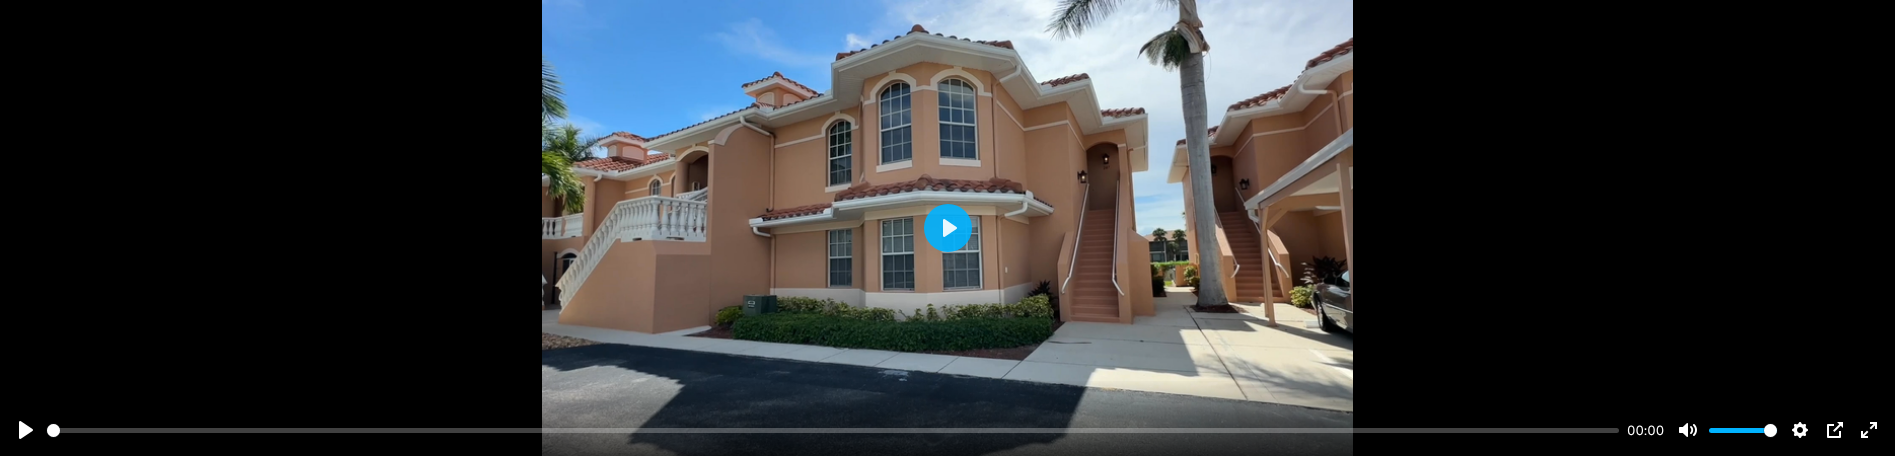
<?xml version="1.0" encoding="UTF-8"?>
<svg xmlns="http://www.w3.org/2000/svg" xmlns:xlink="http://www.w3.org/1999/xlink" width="1895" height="456">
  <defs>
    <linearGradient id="g1" gradientUnits="userSpaceOnUse" x1="948" y1="379" x2="948" y2="456"><stop offset="0" stop-color="#000000" stop-opacity="0" /><stop offset="1" stop-color="#000000" stop-opacity="0.75" /></linearGradient>
  </defs>
  <rect width="100%" height="100%" fill="#000000" />
  <image x="46" y="0" width="1732" height="456" xlink:href="image1.png" />
  <circle cx="948" cy="228" r="24" fill="#00b3ff" fill-opacity="0.9" />
  <image x="943" y="219" width="14" height="18" xlink:href="image2.png" />
  <rect x="46" y="381" width="1732" height="75" fill="url(#g1)" />
  <image x="19" y="421" width="14" height="18" xlink:href="image3.png" />
  <rect x="47" y="428" width="1572" height="5" rx="2.5" fill="#ffffff" fill-opacity="0.25" />
  <circle cx="53.5" cy="430.5" r="7" fill="none" stroke="#23282f" stroke-opacity="0.2" />
  <rect x="47" y="425" width="13" height="13" rx="6.5" fill="#23282f" fill-opacity="0.15" filter="blur(0.5px)" />
  <path d="M 50.5 420.5 h 6 l -3 3 z" fill="#000000" />
  <circle cx="53.5" cy="430.5" r="6.5" fill="#ffffff" />
  <image x="1679" y="423" width="18" height="14" xlink:href="image4.png" />
  <rect x="1709" y="428" width="68" height="5" rx="2.5" fill="#00b3ff" />
  <circle cx="1770.5" cy="430.5" r="7" fill="none" stroke="#23282f" stroke-opacity="0.2" />
  <rect x="1764" y="425" width="13" height="13" rx="6.5" fill="#23282f" fill-opacity="0.15" filter="blur(0.5px)" />
  <circle cx="1770.5" cy="430.5" r="6.5" fill="#ffffff" />
  <image x="1792" y="422" width="16" height="16" xlink:href="image5.png" />
  <image x="1827" y="422" width="16" height="16" xlink:href="image6.png" />
  <image x="1861" y="422" width="16" height="16" xlink:href="image7.png" />
  <text x="1627" y="435" style="font-family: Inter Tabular; font-size: 13px; fill: #ffffff">00:00</text>
</svg>
